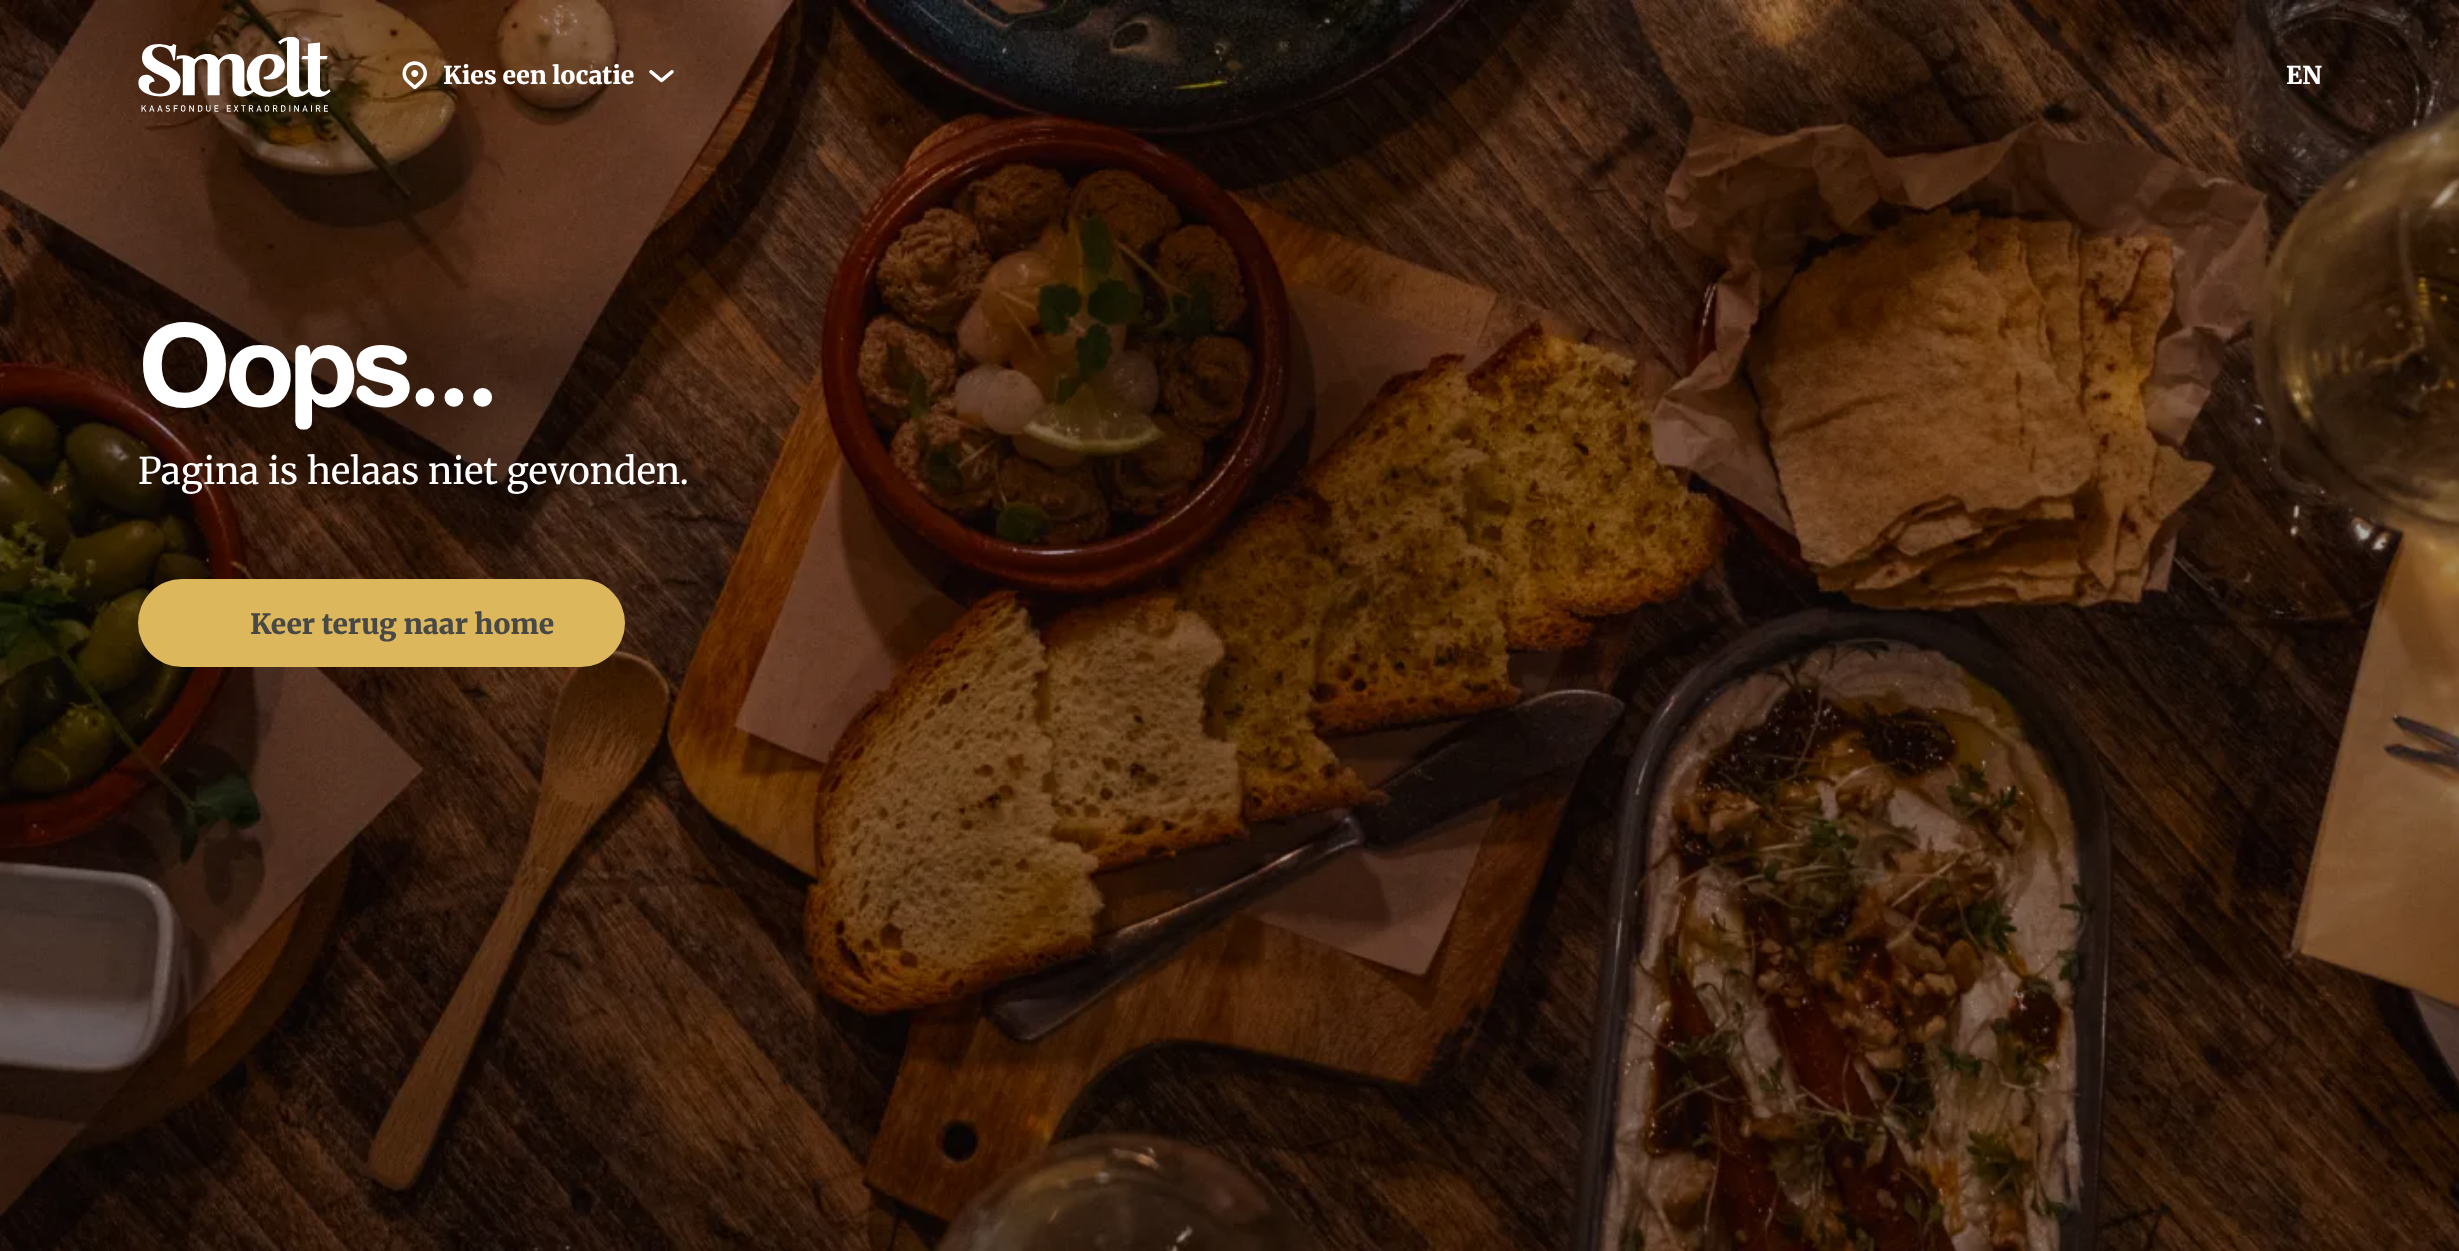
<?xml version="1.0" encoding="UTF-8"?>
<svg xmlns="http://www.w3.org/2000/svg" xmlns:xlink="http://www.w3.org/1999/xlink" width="2459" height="1251">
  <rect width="100%" height="100%" fill="#ffffff" />
  <image x="0" y="0" width="2459" height="1251" xlink:href="image1.png" />
  <image x="138" y="37" width="193" height="75" xlink:href="image2.png" />
  <image x="402" y="61" width="25" height="28" xlink:href="image3.png" />
  <image x="649" y="70" width="25" height="13" xlink:href="image4.png" />
  <rect x="138" y="579" width="487" height="88" rx="44" fill="#dcb75b" />
  <text x="443" y="84" style="font-family: Merriweather; font-size: 24.5px; font-weight: 900; fill: #ffffff">Kies een locatie</text>
  <text x="2286" y="84" style="font-family: Merriweather; font-size: 24.5px; font-weight: 900; fill: #ffffff">EN</text>
  <text x="138" y="406" style="font-family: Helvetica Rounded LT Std; font-size: 114px; font-weight: bold; letter-spacing: -6px; fill: #ffffff">Oops...</text>
  <text x="138" y="484" style="font-family: Merriweather; font-size: 36.75px; fill: #ffffff">Pagina is helaas niet gevonden.</text>
  <text x="250" y="634" style="font-family: Merriweather; font-size: 28px; font-weight: 900; fill: #484846">Keer terug naar home</text>
</svg>
